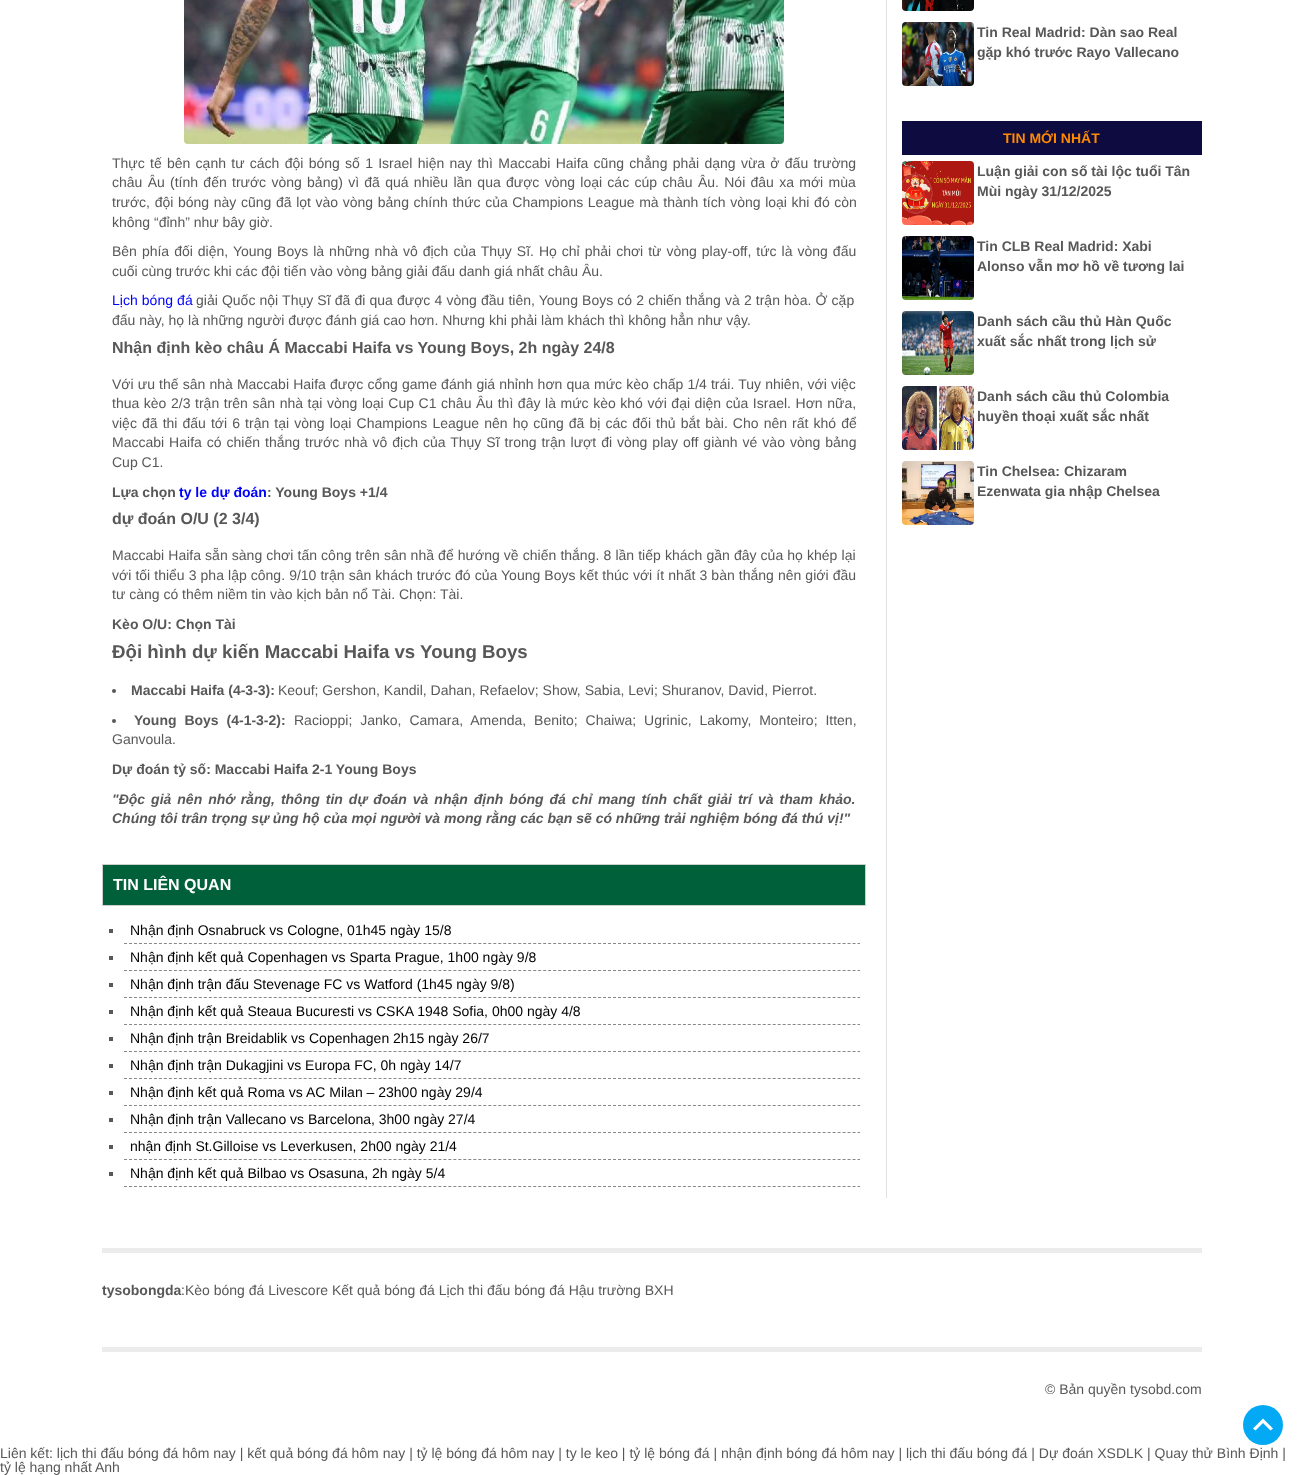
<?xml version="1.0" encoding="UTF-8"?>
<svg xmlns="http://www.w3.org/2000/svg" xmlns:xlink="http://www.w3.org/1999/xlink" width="1303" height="1475">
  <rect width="100%" height="100%" fill="#ffffff" />
  <rect x="886" width="1" height="1198" fill="#e1e1e1" />
  <image x="184" y="0" width="600" height="144" xlink:href="image1.png" />
  <circle cx="114" cy="691" r="2" fill="#585858" />
  <circle cx="114" cy="721" r="2" fill="#585858" />
  <rect x="102.5" y="864.5" width="763" height="41" fill="#00603a" stroke="#cecece" />
  <path d="M 124 943.5 h 736" fill="none" stroke="#888888" stroke-dasharray="3 1.99" />
  <rect x="109" y="929" width="4" height="4" fill="#585858" />
  <path d="M 124 970.5 h 736" fill="none" stroke="#888888" stroke-dasharray="3 1.99" />
  <rect x="109" y="956" width="4" height="4" fill="#585858" />
  <path d="M 124 997.5 h 736" fill="none" stroke="#888888" stroke-dasharray="3 1.99" />
  <rect x="109" y="983" width="4" height="4" fill="#585858" />
  <path d="M 124 1024.5 h 736" fill="none" stroke="#888888" stroke-dasharray="3 1.99" />
  <rect x="109" y="1010" width="4" height="4" fill="#585858" />
  <path d="M 124 1051.5 h 736" fill="none" stroke="#888888" stroke-dasharray="3 1.99" />
  <rect x="109" y="1037" width="4" height="4" fill="#585858" />
  <path d="M 124 1078.5 h 736" fill="none" stroke="#888888" stroke-dasharray="3 1.99" />
  <rect x="109" y="1064" width="4" height="4" fill="#585858" />
  <path d="M 124 1105.5 h 736" fill="none" stroke="#888888" stroke-dasharray="3 1.99" />
  <rect x="109" y="1091" width="4" height="4" fill="#585858" />
  <path d="M 124 1132.5 h 736" fill="none" stroke="#888888" stroke-dasharray="3 1.99" />
  <rect x="109" y="1118" width="4" height="4" fill="#585858" />
  <path d="M 124 1159.5 h 736" fill="none" stroke="#888888" stroke-dasharray="3 1.99" />
  <rect x="109" y="1145" width="4" height="4" fill="#585858" />
  <path d="M 124 1186.5 h 736" fill="none" stroke="#888888" stroke-dasharray="3 1.99" />
  <rect x="109" y="1172" width="4" height="4" fill="#585858" />
  <image x="902" y="0" width="72" height="11" xlink:href="image2.png" />
  <image x="902" y="22" width="72" height="64" xlink:href="image3.png" />
  <rect x="902" y="121" width="300" height="34" fill="#0e0b41" />
  <image x="902" y="161" width="72" height="64" xlink:href="image4.png" />
  <image x="902" y="236" width="72" height="64" xlink:href="image5.png" />
  <image x="902" y="311" width="72" height="64" xlink:href="image6.png" />
  <image x="902" y="386" width="72" height="64" xlink:href="image7.png" />
  <image x="902" y="461" width="72" height="64" xlink:href="image8.png" />
  <rect x="102" y="1248" width="1100" height="5" fill="#ececec" />
  <rect x="102" y="1347" width="1100" height="5" fill="#ececec" />
  <circle cx="1263" cy="1425" r="20" fill="#03a9f4" />
  <path d="M 1255.5 1430.5 l 7.5 -7.5 l 7.5 7.5 l 2.5 -2 l -10 -10 l -10 10 z" fill="#ffffff" />
  <text x="112" y="168" word-spacing="1.4" style="font-family: Liberation Sans; font-size: 14px; fill: #585858">Thực tế bên cạnh tư cách đội bóng số 1 Israel hiện nay thì Maccabi Haifa cũng chẳng phải dạng vừa ở đấu trường</text>
  <text x="112" y="187" word-spacing="1.4" style="font-family: Liberation Sans; font-size: 14px; fill: #585858">châu Âu (tính đến trước vòng bảng) vì đã quá nhiều lần qua được vòng loại các cúp châu Âu. Nói đâu xa mới mùa</text>
  <text x="112" y="207" word-spacing="0.75" style="font-family: Liberation Sans; font-size: 14px; fill: #585858">trước, đội bóng này cũng đã lọt vào vòng bảng chính thức của Champions League mà thành tích vòng loại khi đó còn</text>
  <text x="112" y="227" style="font-family: Liberation Sans; font-size: 14px; fill: #585858">không “đỉnh” như bây giờ.</text>
  <text x="112" y="256" word-spacing="1.1" style="font-family: Liberation Sans; font-size: 14px; fill: #585858">Bên phía đối diện, Young Boys là những nhà vô địch của Thụy Sĩ. Họ chỉ phải chơi từ vòng play-off, tức là vòng đấu</text>
  <text x="112" y="276" style="font-family: Liberation Sans; font-size: 14px; fill: #585858">cuối cùng trước khi các đội tiến vào vòng bảng giải đấu danh giá nhất châu Âu.</text>
  <text x="112" y="305" word-spacing="0.25" style="font-family: Liberation Sans; font-size: 14px; fill: #0000ff">Lịch bóng đá</text>
  <text x="196" y="305" word-spacing="0.25" style="font-family: Liberation Sans; font-size: 14px; fill: #585858">giải Quốc nội Thụy Sĩ đã đi qua được 4 vòng đầu tiên, Young Boys có 2 chiến thắng và 2 trận hòa. Ở cặp</text>
  <text x="112" y="325" style="font-family: Liberation Sans; font-size: 14px; fill: #585858">đấu này, họ là những người được đánh giá cao hơn. Nhưng khi phải làm khách thì không hẳn như vậy.</text>
  <text x="112" y="353" style="font-family: Liberation Sans; font-size: 16px; font-weight: bold; fill: #585858">Nhận định kèo châu Á Maccabi Haifa vs Young Boys, 2h ngày 24/8</text>
  <text x="112" y="389" word-spacing="0.25" style="font-family: Liberation Sans; font-size: 14px; fill: #585858">Với ưu thế sân nhà Maccabi Haifa được cổng game đánh giá nhỉnh hơn qua mức kèo chấp 1/4 trái. Tuy nhiên, với việc</text>
  <text x="112" y="408" word-spacing="0.7" style="font-family: Liberation Sans; font-size: 14px; fill: #585858">thua kèo 2/3 trận trên sân nhà tại vòng loại Cup C1 châu Âu thì đây là mức kèo khó với đại diện của Israel. Hơn nữa,</text>
  <text x="112" y="428" word-spacing="1.2" style="font-family: Liberation Sans; font-size: 14px; fill: #585858">việc đã thi đấu tới 6 trận tại vòng loại Champions League nên họ cũng đã bị các đối thủ bắt bài. Cho nên rất khó để</text>
  <text x="112" y="447" word-spacing="1.1" style="font-family: Liberation Sans; font-size: 14px; fill: #585858">Maccabi Haifa có chiến thắng trước nhà vô địch của Thụy Sĩ trong trận lượt đi vòng play off giành vé vào vòng bảng</text>
  <text x="112" y="467" style="font-family: Liberation Sans; font-size: 14px; fill: #585858">Cup C1.</text>
  <text x="112" y="497" style="font-family: Liberation Sans; font-size: 14px; font-weight: bold; fill: #585858">Lựa chọn</text>
  <text x="179" y="497" style="font-family: Liberation Sans; font-size: 14px; font-weight: bold; fill: #0000ff">ty le dự đoán</text>
  <text x="267" y="497" style="font-family: Liberation Sans; font-size: 14px; font-weight: bold; fill: #585858">: Young Boys +1/4</text>
  <text x="112" y="524" style="font-family: Liberation Sans; font-size: 16px; font-weight: bold; fill: #585858">dự đoán O/U (2 3/4)</text>
  <text x="112" y="560" word-spacing="0.25" style="font-family: Liberation Sans; font-size: 14px; fill: #585858">Maccabi Haifa sẵn sàng chơi tấn công trên sân nhầ để hướng về chiến thắng. 8 lần tiếp khách gần đây của họ khép lại</text>
  <text x="112" y="580" word-spacing="0.2" style="font-family: Liberation Sans; font-size: 14px; fill: #585858">với tối thiểu 3 pha lập công. 9/10 trận sân khách trước đó của Young Boys kết thúc với ít nhất 3 bàn thắng nên giới đầu</text>
  <text x="112" y="599" style="font-family: Liberation Sans; font-size: 14px; fill: #585858">tư càng có thêm niềm tin vào kịch bản nổ Tài. Chọn: Tài.</text>
  <text x="112" y="629" style="font-family: Liberation Sans; font-size: 14px; font-weight: bold; fill: #585858">Kèo O/U: Chọn Tài</text>
  <text x="112" y="658" style="font-family: Liberation Sans; font-size: 18.7px; font-weight: bold; fill: #585858">Đội hình dự kiến Maccabi Haifa vs Young Boys</text>
  <text x="131" y="695" style="font-family: Liberation Sans; font-size: 14px; font-weight: bold; fill: #585858">Maccabi Haifa (4-3-3):</text>
  <text x="278" y="695" style="font-family: Liberation Sans; font-size: 14px; fill: #585858">Keouf; Gershon, Kandil, Dahan, Refaelov; Show, Sabia, Levi; Shuranov, David, Pierrot.</text>
  <text x="134" y="725" word-spacing="4" style="font-family: Liberation Sans; font-size: 14px; font-weight: bold; fill: #585858">Young Boys (4-1-3-2):</text>
  <text x="294" y="725" word-spacing="4" style="font-family: Liberation Sans; font-size: 14px; fill: #585858">Racioppi; Janko, Camara, Amenda, Benito; Chaiwa; Ugrinic, Lakomy, Monteiro; Itten,</text>
  <text x="112" y="744" style="font-family: Liberation Sans; font-size: 14px; fill: #585858">Ganvoula.</text>
  <text x="112" y="774" style="font-family: Liberation Sans; font-size: 14px; font-weight: bold; fill: #585858">Dự đoán tỷ số: Maccabi Haifa 2-1 Young Boys</text>
  <text x="112" y="804" word-spacing="2.1" style="font-family: Liberation Sans; font-size: 14px; font-weight: bold; font-style: italic; fill: #585858">"Độc giả nên nhớ rằng, thông tin dự đoán và nhận định bóng đá chỉ mang tính chất giải trí và tham khảo.</text>
  <text x="112" y="823" style="font-family: Liberation Sans; font-size: 14px; font-weight: bold; font-style: italic; fill: #585858">Chúng tôi trân trọng sự ủng hộ của mọi người và mong rằng các bạn sẽ có những trải nghiệm bóng đá thú vị!"</text>
  <text x="113" y="890" style="font-family: Liberation Sans; font-size: 16px; font-weight: bold; fill: #ffffff">TIN LIÊN QUAN</text>
  <text x="130" y="935" style="font-family: Liberation Sans; font-size: 14px; fill: #000000">Nhận định Osnabruck vs Cologne, 01h45 ngày 15/8</text>
  <text x="130" y="962" style="font-family: Liberation Sans; font-size: 14px; fill: #000000">Nhận định kết quả Copenhagen vs Sparta Prague, 1h00 ngày 9/8</text>
  <text x="130" y="989" style="font-family: Liberation Sans; font-size: 14px; fill: #000000">Nhận định trận đấu Stevenage FC vs Watford (1h45 ngày 9/8)</text>
  <text x="130" y="1016" style="font-family: Liberation Sans; font-size: 14px; fill: #000000">Nhận định kết quả Steaua Bucuresti vs CSKA 1948 Sofia, 0h00 ngày 4/8</text>
  <text x="130" y="1043" style="font-family: Liberation Sans; font-size: 14px; fill: #000000">Nhận định trận Breidablik vs Copenhagen 2h15 ngày 26/7</text>
  <text x="130" y="1070" style="font-family: Liberation Sans; font-size: 14px; fill: #000000">Nhận định trận Dukagjini vs Europa FC, 0h ngày 14/7</text>
  <text x="130" y="1097" style="font-family: Liberation Sans; font-size: 14px; fill: #000000">Nhận định kết quả Roma vs AC Milan – 23h00 ngày 29/4</text>
  <text x="130" y="1124" style="font-family: Liberation Sans; font-size: 14px; fill: #000000">Nhận định trận Vallecano vs Barcelona, 3h00 ngày 27/4</text>
  <text x="130" y="1151" style="font-family: Liberation Sans; font-size: 14px; fill: #000000">nhận định St.Gilloise vs Leverkusen, 2h00 ngày 21/4</text>
  <text x="130" y="1178" style="font-family: Liberation Sans; font-size: 14px; fill: #000000">Nhận định kết quả Bilbao vs Osasuna, 2h ngày 5/4</text>
  <text x="977" y="37" style="font-family: Liberation Sans; font-size: 14px; font-weight: bold; fill: #585858">Tin Real Madrid: Dàn sao Real</text>
  <text x="977" y="57" style="font-family: Liberation Sans; font-size: 14px; font-weight: bold; fill: #585858">gặp khó trước Rayo Vallecano</text>
  <text x="1003" y="143" style="font-family: Liberation Sans; font-size: 14px; font-weight: bold; fill: #ff8a00">TIN MỚI NHẤT</text>
  <text x="977" y="176" style="font-family: Liberation Sans; font-size: 14px; font-weight: bold; fill: #585858">Luận giải con số tài lộc tuổi Tân</text>
  <text x="977" y="196" style="font-family: Liberation Sans; font-size: 14px; font-weight: bold; fill: #585858">Mùi ngày 31/12/2025</text>
  <text x="977" y="251" style="font-family: Liberation Sans; font-size: 14px; font-weight: bold; fill: #585858">Tin CLB Real Madrid: Xabi</text>
  <text x="977" y="271" style="font-family: Liberation Sans; font-size: 14px; font-weight: bold; fill: #585858">Alonso vẫn mơ hồ về tương lai</text>
  <text x="977" y="326" style="font-family: Liberation Sans; font-size: 14px; font-weight: bold; fill: #585858">Danh sách cầu thủ Hàn Quốc</text>
  <text x="977" y="346" style="font-family: Liberation Sans; font-size: 14px; font-weight: bold; fill: #585858">xuất sắc nhất trong lịch sử</text>
  <text x="977" y="401" style="font-family: Liberation Sans; font-size: 14px; font-weight: bold; fill: #585858">Danh sách cầu thủ Colombia</text>
  <text x="977" y="421" style="font-family: Liberation Sans; font-size: 14px; font-weight: bold; fill: #585858">huyền thoại xuất sắc nhất</text>
  <text x="977" y="476" style="font-family: Liberation Sans; font-size: 14px; font-weight: bold; fill: #585858">Tin Chelsea: Chizaram</text>
  <text x="977" y="496" style="font-family: Liberation Sans; font-size: 14px; font-weight: bold; fill: #585858">Ezenwata gia nhập Chelsea</text>
  <text x="102" y="1295" style="font-family: Liberation Sans; font-size: 14px; font-weight: bold; fill: #585858">tysobongda</text>
  <text x="181" y="1295" style="font-family: Liberation Sans; font-size: 14px; fill: #585858">:Kèo bóng đá Livescore Kết quả bóng đá Lịch thi đấu bóng đá Hậu trường BXH</text>
  <text x="1045" y="1394" style="font-family: Liberation Sans; font-size: 14px; fill: #585858">© Bản quyền tysobd.com</text>
  <text x="0" y="1458" style="font-family: Liberation Sans; font-size: 14px; fill: #585858">Liên kết: lịch thi đấu bóng đá hôm nay | kết quả bóng đá hôm nay | tỷ lệ bóng đá hôm nay | ty le keo | tỷ lệ bóng đá | nhận định bóng đá hôm nay | lịch thi đấu bóng đá | Dự đoán XSDLK | Quay thử Bình Định |</text>
  <text x="0" y="1472" style="font-family: Liberation Sans; font-size: 14px; fill: #585858">tỷ lệ hạng nhất Anh</text>
</svg>
